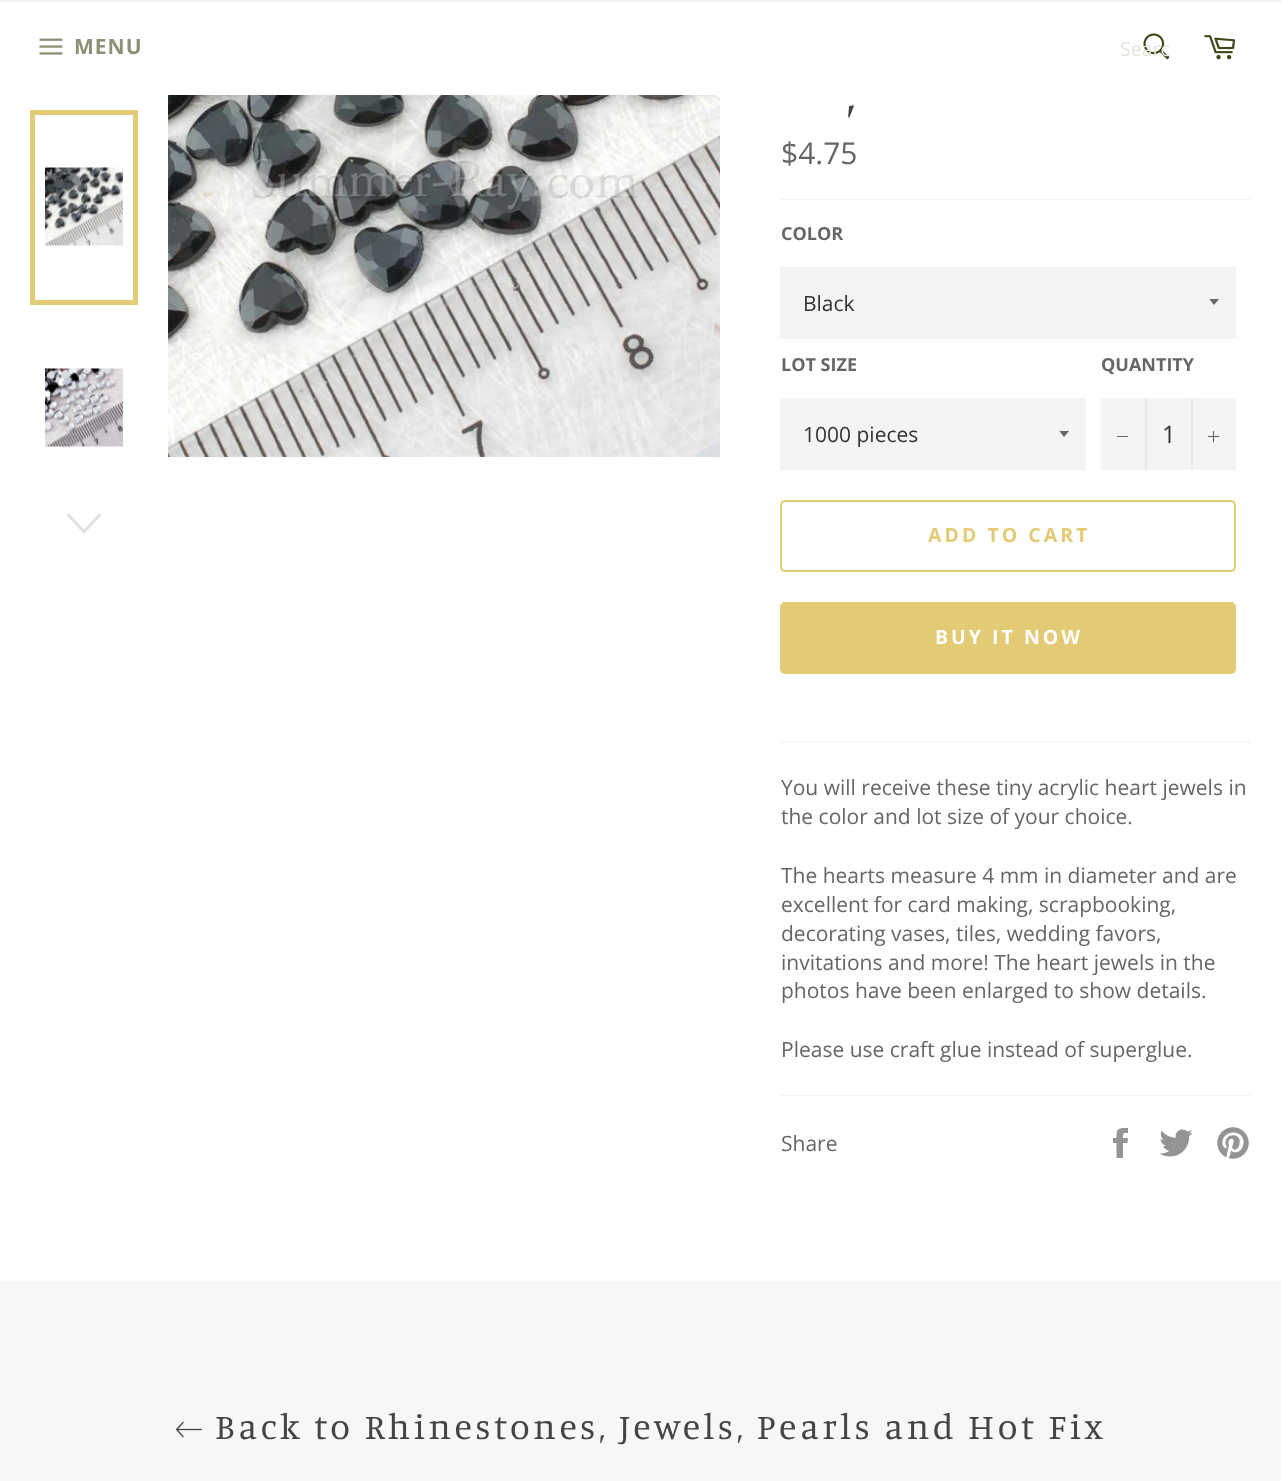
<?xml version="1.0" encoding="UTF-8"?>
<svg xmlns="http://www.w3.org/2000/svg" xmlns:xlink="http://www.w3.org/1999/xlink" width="1281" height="1481">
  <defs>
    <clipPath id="clip1"><rect x="1209" y="299" width="12" height="7" /></clipPath>
    <clipPath id="clip2"><rect x="1059" y="431" width="12" height="7" /></clipPath>
    <clipPath id="clip3"><rect x="1121" y="35" width="48" height="27" /></clipPath>
  </defs>
  <rect width="100%" height="100%" fill="#ffffff" />
  <rect width="1281" height="2" fill="#f2f2f2" />
  <image x="39" y="38" width="24" height="17" xlink:href="image1.png" />
  <image x="1143" y="33" width="27" height="27" xlink:href="image2.png" />
  <image x="1204" y="35" width="31" height="25" xlink:href="image3.png" />
  <image x="45" y="167" width="78" height="79" xlink:href="image4.png" />
  <rect x="32.5" y="112.5" width="103" height="190" fill="none" stroke="#e3ca74" stroke-width="5" />
  <image x="45" y="368" width="78" height="79" xlink:href="image5.png" />
  <path d="M 99.5 513 l 2 2 l -17.5 19 l -17.5 -19 l 2 -2 l 15.5 16.5 z" fill="#e0e0e0" />
  <image x="168" y="95" width="552" height="362" xlink:href="image6.png" />
  <rect x="780" y="198" width="471" height="2" fill="#f7f7f7" />
  <rect x="780" y="267" width="456" height="72" fill="#f4f4f4" />
  <g clip-path="url(#clip1)">
    <path d="M 1209 298.5 l 5 6.5 l 5.5 -6.5 z" fill="#666666" />
  </g>
  <rect x="780" y="398" width="306" height="72" fill="#f4f4f4" />
  <g clip-path="url(#clip2)">
    <path d="M 1059 430.5 l 5 6.5 l 5.5 -6.5 z" fill="#666666" />
  </g>
  <rect x="1101" y="398" width="135" height="72" fill="#f4f4f4" />
  <rect x="1145" y="398" width="2" height="72" fill="#e7e7e7" />
  <rect x="1117" y="436" width="11" height="1" fill="#666666" />
  <rect x="1191" y="398" width="2" height="72" fill="#e7e7e7" />
  <image x="1208" y="431" width="12" height="12" xlink:href="image7.png" />
  <rect x="781" y="501" width="454" height="70" rx="4" fill="none" stroke="#e3ca74" stroke-width="2" />
  <rect x="780" y="602" width="456" height="72" rx="5" fill="#e3ca74" />
  <rect x="780" y="741" width="471" height="2" fill="#f7f7f7" />
  <rect x="780" y="1094" width="471" height="2" fill="#f7f7f7" />
  <image x="1113" y="1128" width="15" height="30" xlink:href="image8.png" />
  <image x="1159" y="1129" width="34" height="28" xlink:href="image9.png" />
  <image x="1217" y="1127" width="32" height="32" xlink:href="image10.png" />
  <rect y="1281" width="1281" height="200" fill="#f7f7f7" />
  <image x="176" y="1421" width="26" height="17" xlink:href="image11.png" />
  <text x="74" y="54" style="font-family: Open Sans; font-size: 21px; font-weight: bold; letter-spacing: 1px; fill: #8b9174">MENU</text>
  <g clip-path="url(#clip3)">
    <text x="1120" y="56" style="font-family: Open Sans; font-size: 19.5px; fill: #e2e4dc">Searc</text>
  </g>
  <text x="846" y="111" style="font-family: Manuale; font-size: 54px; letter-spacing: 5px; fill: #444444">,</text>
  <text x="781" y="164" style="font-family: Open Sans; font-size: 30px; fill: #666666">$4.75</text>
  <text x="781" y="240" style="font-family: Open Sans; font-size: 18px; font-weight: bold; fill: #666666">COLOR</text>
  <text x="803" y="311" style="font-family: Open Sans; font-size: 21px; fill: #333333">Black</text>
  <text x="781" y="371" style="font-family: Open Sans; font-size: 18px; font-weight: bold; fill: #666666">LOT SIZE</text>
  <text x="803" y="442" style="font-family: Open Sans; font-size: 21px; fill: #333333">1000 pieces</text>
  <text x="1101" y="371" style="font-family: Open Sans; font-size: 18px; font-weight: bold; fill: #666666">QUANTITY</text>
  <text x="1162" y="443" style="font-family: Open Sans; font-size: 24px; fill: #333333">1</text>
  <text x="928" y="542" style="font-family: Open Sans; font-size: 19.5px; font-weight: bold; letter-spacing: 3px; fill: #e3ca74">ADD TO CART</text>
  <text x="935" y="644" style="font-family: Open Sans; font-size: 19.5px; font-weight: bold; letter-spacing: 3px; fill: #ffffff">BUY IT NOW</text>
  <text x="781" y="795" style="font-family: Open Sans; font-size: 21px; fill: #666666">You will receive these tiny acrylic heart jewels in</text>
  <text x="781" y="824" style="font-family: Open Sans; font-size: 21px; fill: #666666">the color and lot size of your choice.</text>
  <text x="781" y="883" style="font-family: Open Sans; font-size: 21px; fill: #666666">The hearts measure 4 mm in diameter and are</text>
  <text x="781" y="912" style="font-family: Open Sans; font-size: 21px; fill: #666666">excellent for card making, scrapbooking,</text>
  <text x="781" y="941" style="font-family: Open Sans; font-size: 21px; fill: #666666">decorating vases, tiles, wedding favors,</text>
  <text x="781" y="970" style="font-family: Open Sans; font-size: 21px; fill: #666666">invitations and more! The heart jewels in the</text>
  <text x="781" y="998" style="font-family: Open Sans; font-size: 21px; fill: #666666">photos have been enlarged to show details.</text>
  <text x="781" y="1057" style="font-family: Open Sans; font-size: 21px; fill: #666666">Please use craft glue instead of superglue.</text>
  <text x="781" y="1151" style="font-family: Open Sans; font-size: 21px; fill: #666666">Share</text>
  <text x="215" y="1439" style="font-family: Manuale; font-size: 36px; letter-spacing: 3.6px; fill: #444444">Back to Rhinestones, Jewels, Pearls and Hot Fix</text>
</svg>
